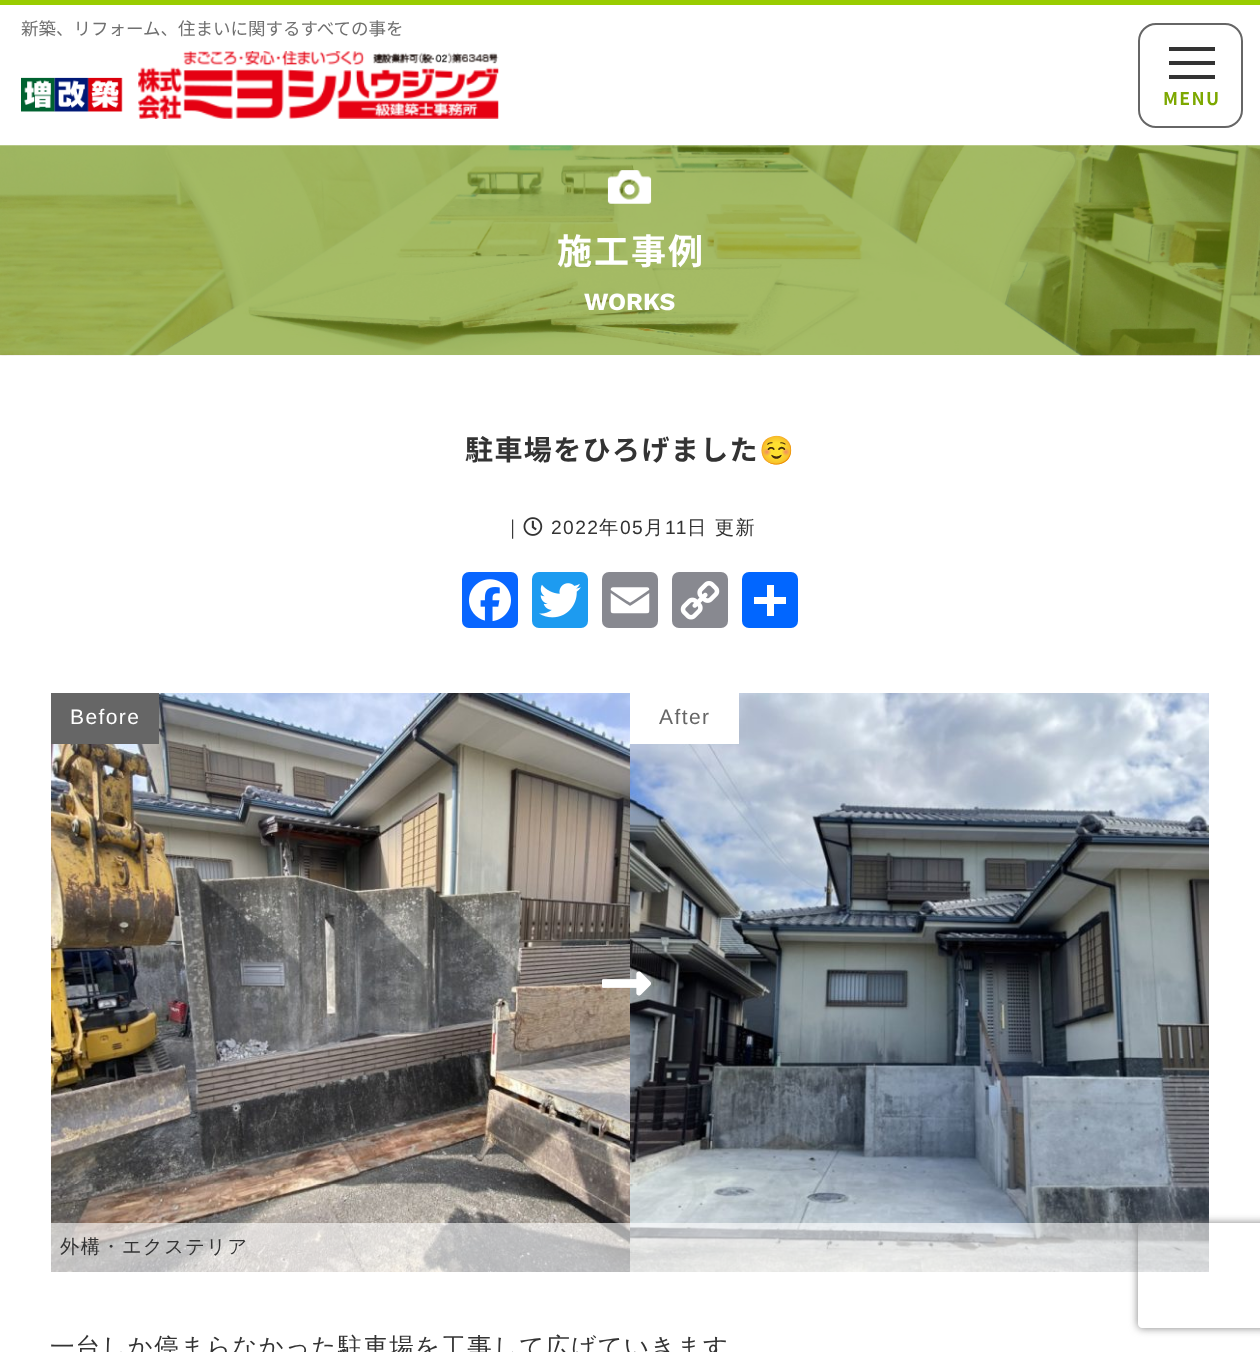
<?xml version="1.0" encoding="UTF-8"?>
<svg xmlns="http://www.w3.org/2000/svg" xmlns:xlink="http://www.w3.org/1999/xlink" width="1260" height="1352">
  <defs>
    <clipPath id="clip1"><path d="M 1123 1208 h 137 v 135 h -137 z m 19 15 h 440 c 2 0 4 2 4 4 v 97 c 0 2 -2 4 -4 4 h -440 c -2 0 -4 -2 -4 -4 v -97 c 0 -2 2 -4 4 -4 z" clip-rule="evenodd" /></clipPath>
  </defs>
  <rect width="100%" height="100%" fill="#ffffff" />
  <image x="21" y="51" width="478" height="68" xlink:href="image1.png" />
  <rect width="1260" height="5" fill="#99cc00" />
  <rect x="1139" y="24" width="103" height="103" rx="17" fill="none" stroke="#666666" stroke-width="2" />
  <rect x="1169" y="47" width="46" height="4" fill="#333333" />
  <rect x="1169" y="61" width="46" height="4" fill="#333333" />
  <rect x="1169" y="75" width="46" height="4" fill="#333333" />
  <image x="0" y="145" width="1260" height="211" xlink:href="image2.png" />
  <image x="607" y="170" width="45" height="34" xlink:href="image3.png" />
  <image x="523" y="517" width="20" height="19" xlink:href="image4.png" />
  <rect x="462" y="572" width="56" height="56" rx="7" fill="#0866ff" />
  <image x="469" y="579" width="42" height="43" xlink:href="image5.png" />
  <rect x="532" y="572" width="56" height="56" rx="7" fill="#1d9bf0" />
  <image x="539" y="583" width="42" height="35" xlink:href="image6.png" />
  <rect x="602" y="572" width="56" height="56" rx="7" fill="#888990" />
  <image x="610" y="587" width="40" height="27" xlink:href="image7.png" />
  <rect x="672" y="572" width="56" height="56" rx="7" fill="#888990" />
  <image x="680" y="581" width="40" height="39" xlink:href="image8.png" />
  <rect x="742" y="572" width="56" height="56" rx="7" fill="#0166ff" />
  <rect x="767" y="585" width="7" height="31" fill="#ffffff" />
  <rect x="754" y="597" width="32" height="7" fill="#ffffff" />
  <image x="51" y="693" width="579" height="579" xlink:href="image9.png" />
  <rect x="51" y="693" width="108" height="51" fill="#666666" />
  <image x="630" y="693" width="579" height="579" xlink:href="image10.png" />
  <rect x="630" y="693" width="109" height="51" fill="#ffffff" />
  <image x="602" y="971" width="49" height="25" xlink:href="image11.png" />
  <rect x="51" y="1223" width="1158" height="49" fill="#ffffff" fill-opacity="0.6" />
  <g clip-path="url(#clip1)">
    <rect x="1138" y="1223" width="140" height="105" rx="4" fill="#808080" filter="blur(4.5px)" />
  </g>
  <text x="21" y="35" style="font-family: Noto Sans JP; font-size: 17.5px; fill: #707070">新築、リフォーム、住まいに関するすべての事を</text>
  <text x="1163" y="105" style="font-family: Noto Sans JP; font-size: 17.5px; font-weight: bold; letter-spacing: 1.4px; fill: #7da800">MENU</text>
  <text x="557" y="264" style="font-family: Noto Sans JP; font-size: 35px; font-weight: bold; letter-spacing: 2px; fill: #ffffff">施工事例</text>
  <text x="584" y="310" style="font-family: Work Sans; font-size: 24.5px; font-weight: bold; fill: #ffffff">WORKS</text>
  <text x="465" y="460" style="font-family: Noto Sans JP; font-size: 28px; font-weight: bold; letter-spacing: 1.4px; fill: #333333">駐車場をひろげました</text>
  <text x="759" y="460" style="font-family: Noto Color Emoji; font-size: 28px; font-weight: bold; letter-spacing: 1.4px; fill: #333333">☺️</text>
  <text x="503" y="534" style="font-family: WenQuanYi Zen Hei; font-size: 19.25px; font-weight: 500; letter-spacing: 1.4px; fill: #333333">｜</text>
  <text x="551" y="534" style="font-family: Liberation Sans; font-size: 19.25px; letter-spacing: 1.4px; fill: #333333">2022</text>
  <text x="599" y="534" style="font-family: WenQuanYi Zen Hei; font-size: 19.25px; font-weight: 500; letter-spacing: 1.4px; fill: #333333">年</text>
  <text x="620" y="534" style="font-family: Liberation Sans; font-size: 19.25px; letter-spacing: 1.4px; fill: #333333">05</text>
  <text x="644" y="534" style="font-family: WenQuanYi Zen Hei; font-size: 19.25px; font-weight: 500; letter-spacing: 1.4px; fill: #333333">月</text>
  <text x="665" y="534" style="font-family: Liberation Sans; font-size: 19.25px; letter-spacing: 1.4px; fill: #333333">11</text>
  <text x="687" y="534" style="font-family: WenQuanYi Zen Hei; font-size: 19.25px; font-weight: 500; letter-spacing: 1.4px; fill: #333333">日 更新</text>
  <text x="70" y="724" style="font-family: Liberation Sans; font-size: 21px; letter-spacing: 1.4px; fill: #ffffff">Before</text>
  <text x="659" y="724" style="font-family: Liberation Sans; font-size: 21px; letter-spacing: 1.4px; fill: #666666">After</text>
  <text x="60" y="1253" style="font-family: WenQuanYi Zen Hei; font-size: 19.25px; font-weight: 500; letter-spacing: 1.4px; fill: #333333">外構・エクステリア</text>
  <text x="50" y="1355" style="font-family: WenQuanYi Zen Hei; font-size: 24.5px; font-weight: 500; letter-spacing: 1.25px; fill: #333333">一台しか停まらなかった駐車場を工事して広げていきます</text>
</svg>
